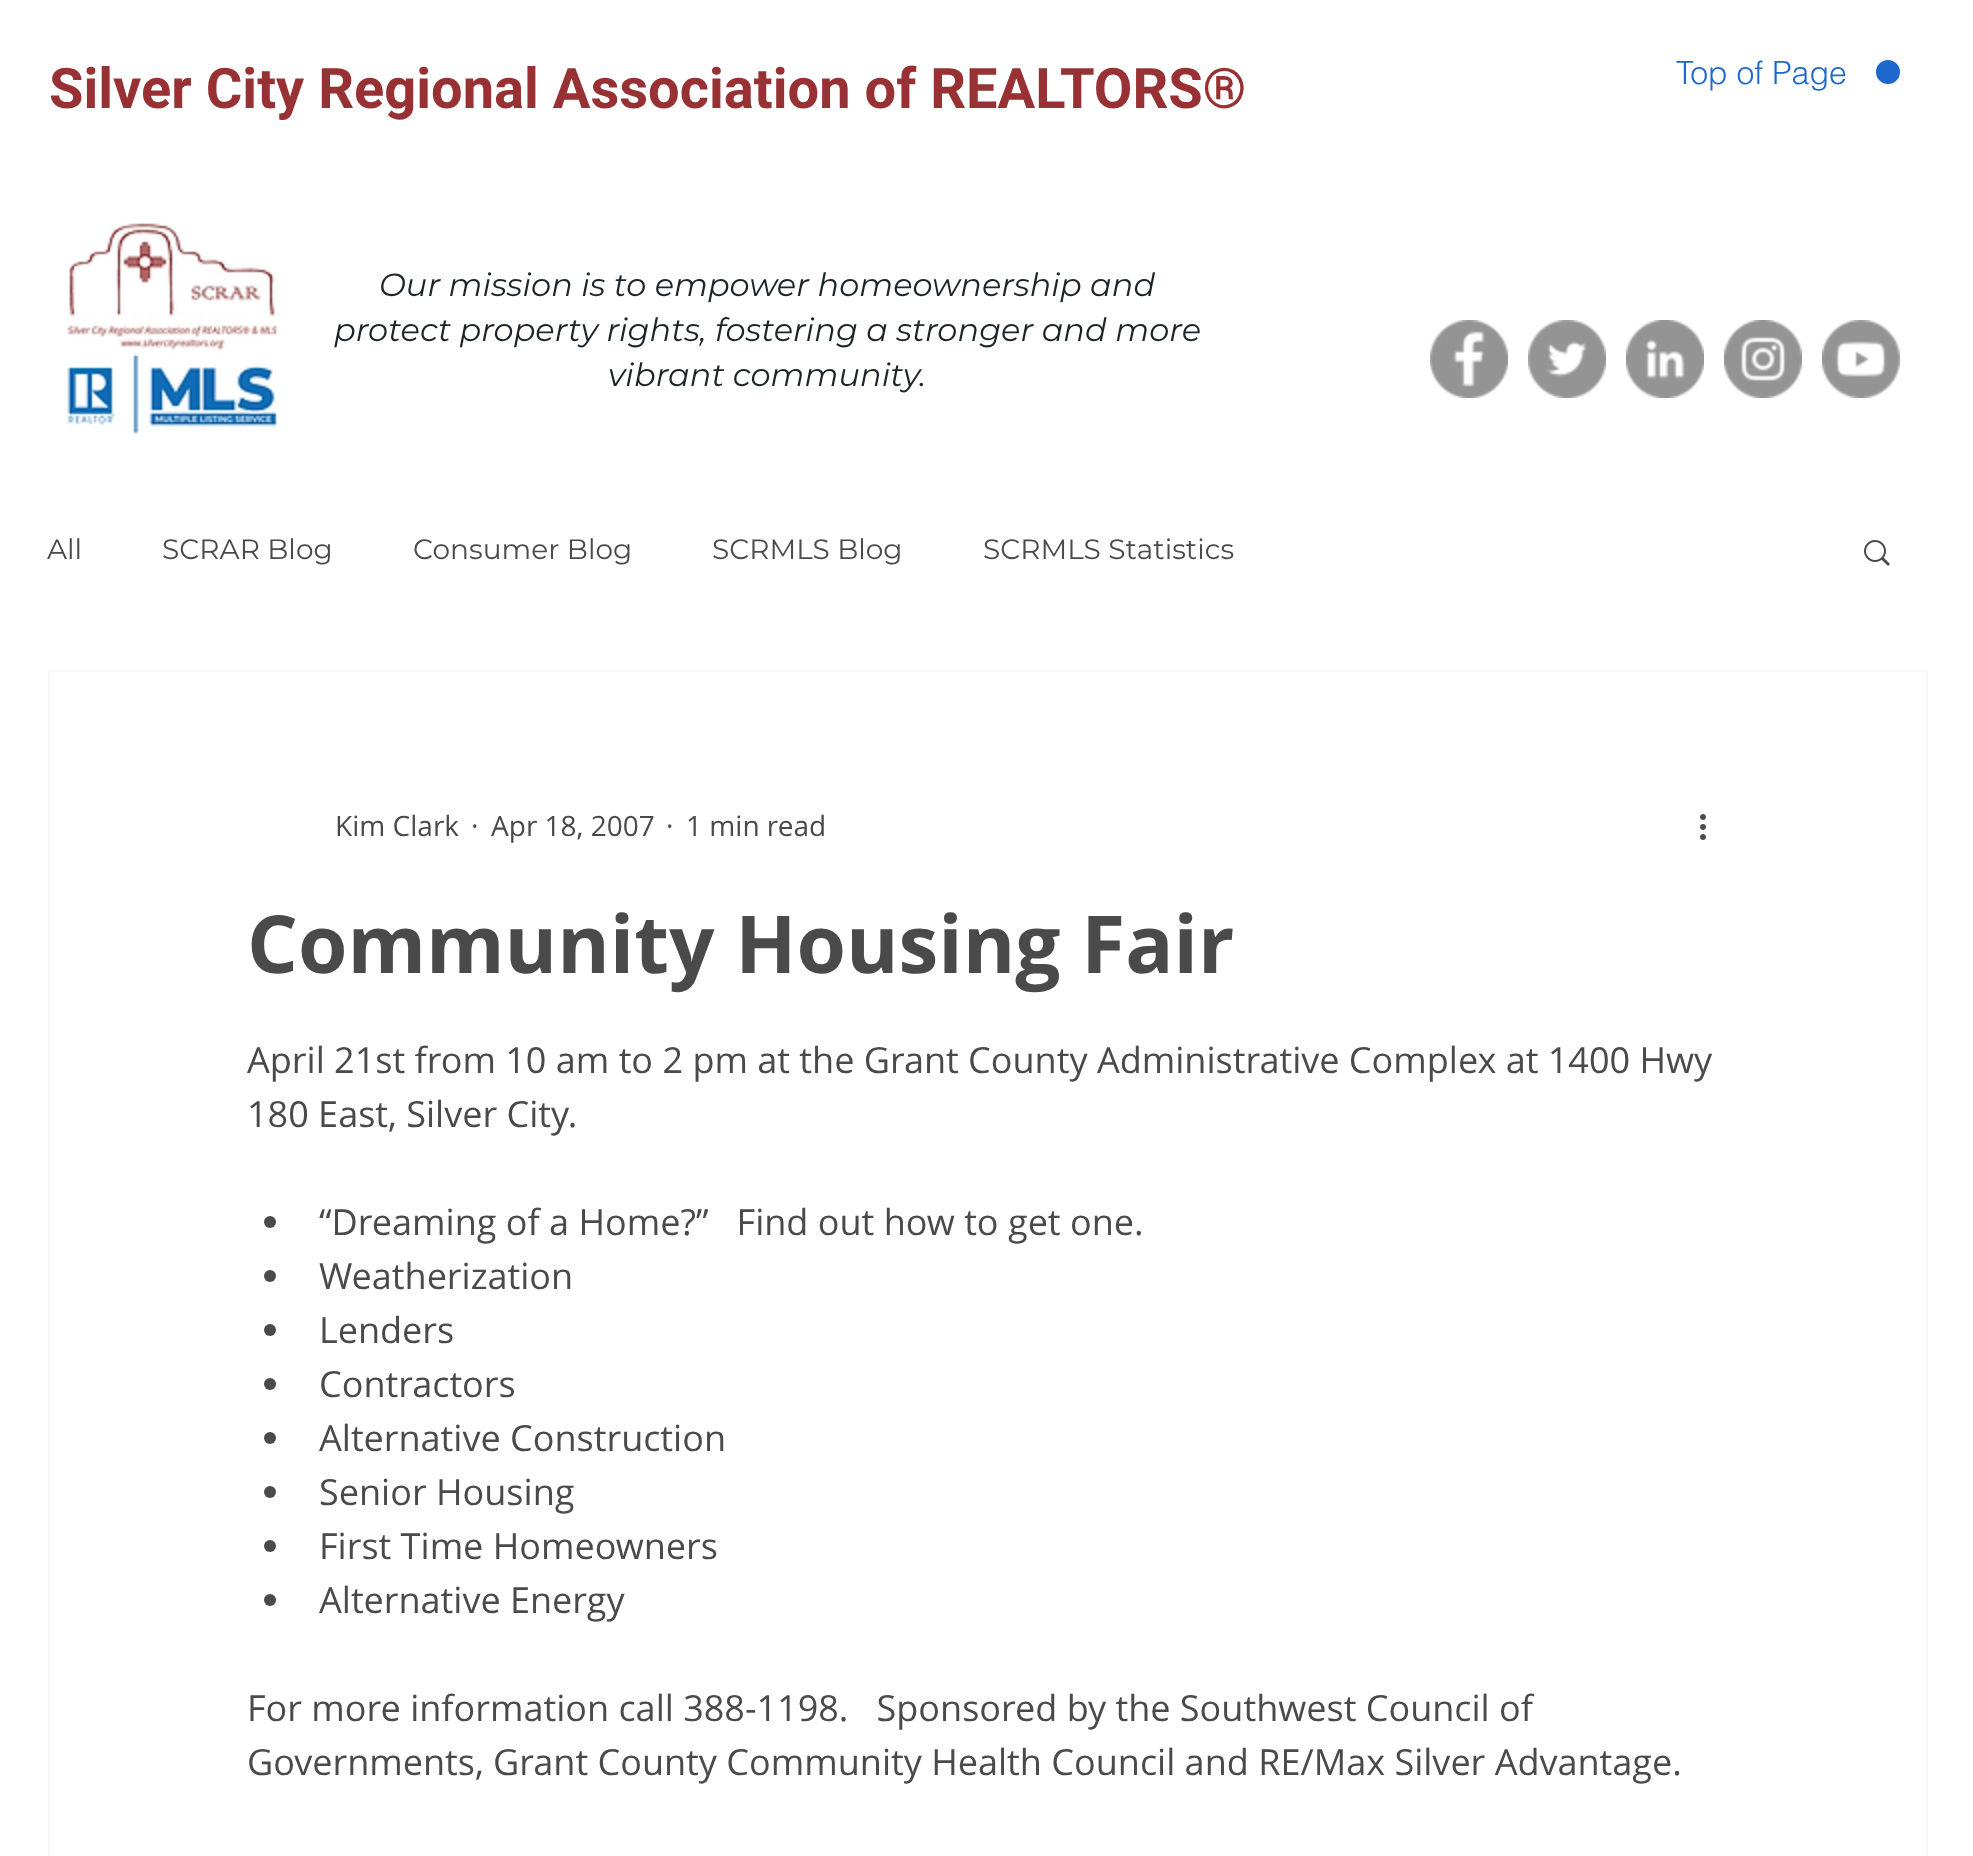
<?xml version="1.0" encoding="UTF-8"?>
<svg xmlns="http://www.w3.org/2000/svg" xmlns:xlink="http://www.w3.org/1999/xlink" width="1973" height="1856">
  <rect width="100%" height="100%" fill="#ffffff" />
  <circle cx="1888" cy="72" r="10" fill="#1d67cd" stroke="#1d67cd" stroke-width="4" />
  <image x="67" y="223" width="211" height="212" xlink:href="image1.png" />
  <image x="1430" y="320" width="78" height="78" xlink:href="image2.png" />
  <image x="1528" y="320" width="78" height="78" xlink:href="image3.png" />
  <image x="1626" y="320" width="78" height="78" xlink:href="image4.png" />
  <image x="1724" y="320" width="78" height="78" xlink:href="image5.png" />
  <image x="1822" y="320" width="78" height="78" xlink:href="image6.png" />
  <image x="1864" y="540" width="26" height="26" xlink:href="image7.png" />
  <rect x="49" y="671" width="1878" height="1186" fill="none" stroke="#f9f9f9" stroke-width="2" />
  <image x="1700" y="814" width="6" height="26" xlink:href="image8.png" />
  <circle cx="270" cy="1222" r="6" fill="#4a4a4a" />
  <circle cx="270" cy="1276" r="6" fill="#4a4a4a" />
  <circle cx="270" cy="1330" r="6" fill="#4a4a4a" />
  <circle cx="270" cy="1384" r="6" fill="#4a4a4a" />
  <circle cx="270" cy="1438" r="6" fill="#4a4a4a" />
  <circle cx="270" cy="1492" r="6" fill="#4a4a4a" />
  <circle cx="270" cy="1546" r="6" fill="#4a4a4a" />
  <circle cx="270" cy="1600" r="6" fill="#4a4a4a" />
  <text x="49" y="108" style="font-family: Roboto; font-size: 56px; font-weight: bold; fill: #973134">Silver City Regional Association of REALTORS®</text>
  <text x="1676" y="84" style="font-family: helvetica; font-size: 32px; font-weight: 300; fill: #1d67cd">Top of Page</text>
  <text x="379" y="296" style="font-family: Montserrat; font-size: 32px; font-style: italic; fill: #1c2429">Our mission is to empower homeownership and</text>
  <text x="334" y="341" style="font-family: Montserrat; font-size: 32px; font-style: italic; fill: #1c2429">protect property rights, fostering a stronger and more</text>
  <text x="608" y="386" style="font-family: Montserrat; font-size: 32px; font-style: italic; fill: #1c2429">vibrant community.</text>
  <text x="47" y="559" style="font-family: Montserrat; font-size: 28px; fill: #4a4a4a">All</text>
  <text x="162" y="559" style="font-family: Montserrat; font-size: 28px; fill: #4a4a4a">SCRAR Blog</text>
  <text x="413" y="559" style="font-family: Montserrat; font-size: 28px; fill: #4a4a4a">Consumer Blog</text>
  <text x="712" y="559" style="font-family: Montserrat; font-size: 28px; fill: #4a4a4a">SCRMLS Blog</text>
  <text x="983" y="559" style="font-family: Montserrat; font-size: 28px; fill: #4a4a4a">SCRMLS Statistics</text>
  <text x="335" y="836" style="font-family: Open Sans; font-size: 28px; fill: #4a4a4a">Kim Clark</text>
  <text x="471" y="836" style="font-family: Open Sans; font-size: 28px; fill: #4a4a4a">·</text>
  <text x="491" y="836" style="font-family: Open Sans; font-size: 28px; fill: #4a4a4a">Apr 18, 2007</text>
  <text x="666" y="836" style="font-family: Open Sans; font-size: 28px; fill: #4a4a4a">·</text>
  <text x="686" y="836" style="font-family: Open Sans; font-size: 28px; fill: #4a4a4a">1 min read</text>
  <text x="247" y="973" style="font-family: Open Sans; font-size: 80px; font-weight: bold; fill: #4a4a4a">Community Housing Fair</text>
  <text x="247" y="1073" style="font-family: Open Sans; font-size: 36px; fill: #4a4a4a">April 21st from 10 am to 2 pm at the Grant County Administrative Complex at 1400 Hwy</text>
  <text x="247" y="1127" style="font-family: Open Sans; font-size: 36px; fill: #4a4a4a">180 East, Silver City.</text>
  <text x="319" y="1235" style="font-family: Open Sans; font-size: 36px; fill: #4a4a4a" xml:space="preserve">“Dreaming of a Home?”   Find out how to get one.</text>
  <text x="319" y="1289" style="font-family: Open Sans; font-size: 36px; fill: #4a4a4a">Weatherization</text>
  <text x="319" y="1343" style="font-family: Open Sans; font-size: 36px; fill: #4a4a4a">Lenders</text>
  <text x="319" y="1397" style="font-family: Open Sans; font-size: 36px; fill: #4a4a4a">Contractors</text>
  <text x="319" y="1451" style="font-family: Open Sans; font-size: 36px; fill: #4a4a4a">Alternative Construction</text>
  <text x="319" y="1505" style="font-family: Open Sans; font-size: 36px; fill: #4a4a4a">Senior Housing</text>
  <text x="319" y="1559" style="font-family: Open Sans; font-size: 36px; fill: #4a4a4a">First Time Homeowners</text>
  <text x="319" y="1613" style="font-family: Open Sans; font-size: 36px; fill: #4a4a4a">Alternative Energy</text>
  <text x="247" y="1721" style="font-family: Open Sans; font-size: 36px; fill: #4a4a4a" xml:space="preserve">For more information call 388-1198.   Sponsored by the Southwest Council of</text>
  <text x="247" y="1775" style="font-family: Open Sans; font-size: 36px; fill: #4a4a4a">Governments, Grant County Community Health Council and RE/Max Silver Advantage.</text>
</svg>
